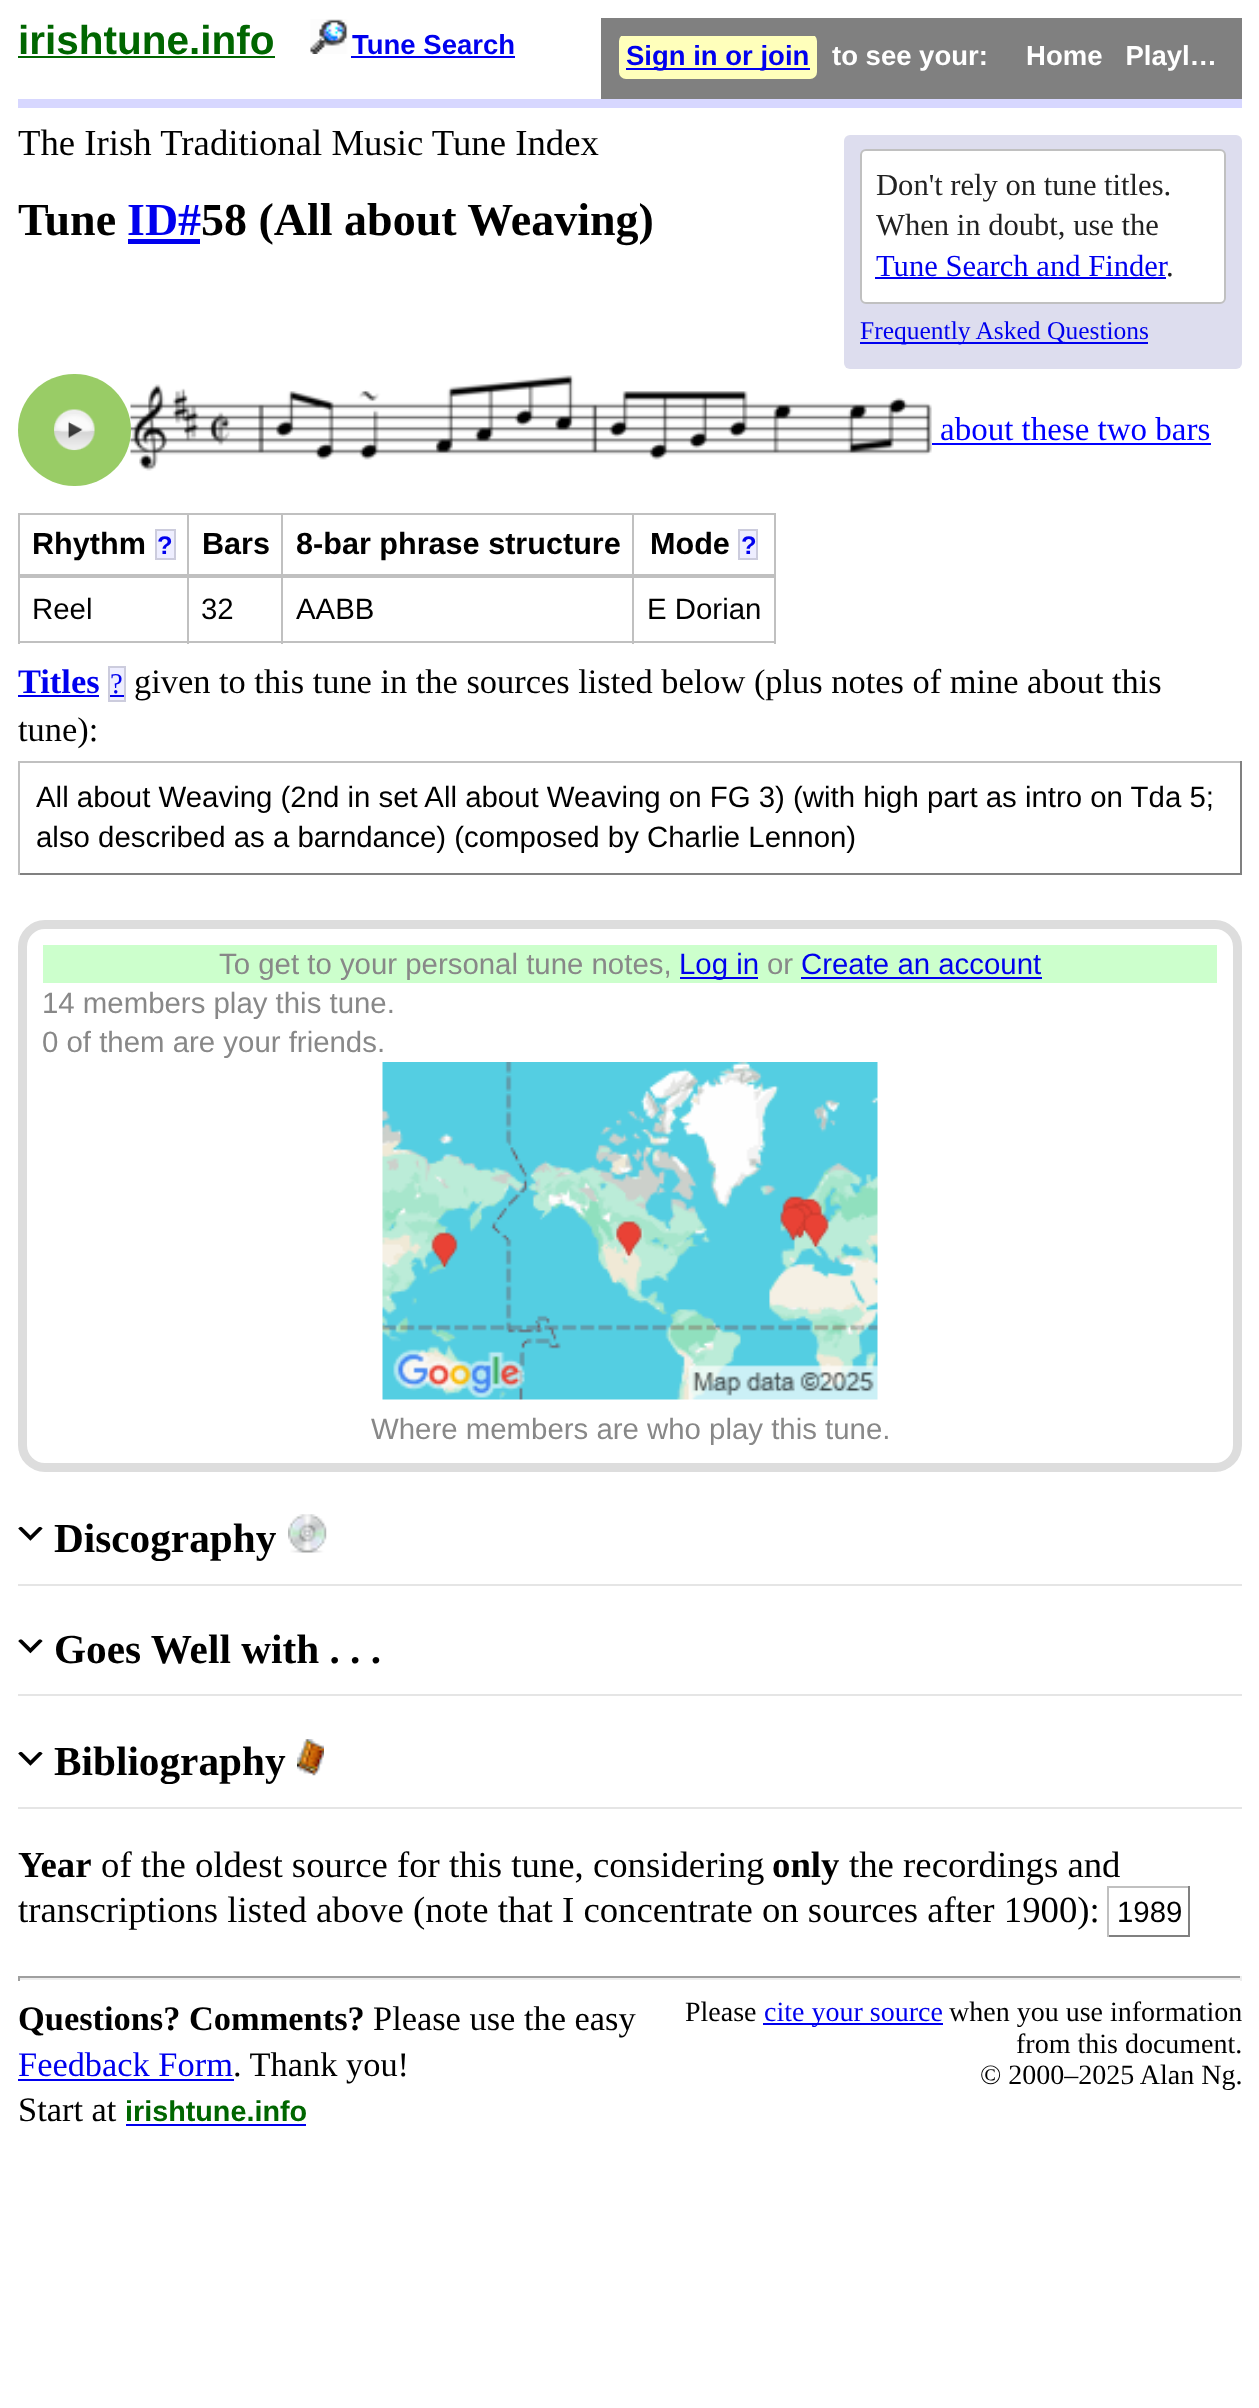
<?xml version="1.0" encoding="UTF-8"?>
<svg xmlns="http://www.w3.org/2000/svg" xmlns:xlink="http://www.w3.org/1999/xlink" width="1259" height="2408">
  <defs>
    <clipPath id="clip1"><rect x="619" y="36" width="605" height="45" /></clipPath>
  </defs>
  <rect width="100%" height="100%" fill="#ffffff" />
  <rect x="18" y="99" width="1224" height="9" fill="#d7d7ff" />
  <rect x="18" y="56" width="257" height="2" fill="#006600" />
  <image x="310" y="19" width="38" height="35" xlink:href="image1.png" />
  <rect x="351" y="56" width="164" height="2" fill="#0000ee" />
  <rect x="601" y="18" width="641" height="81" fill="#808080" />
  <g clip-path="url(#clip1)">
    <rect x="619" y="34" width="198" height="45" rx="7" fill="#ffffbb" />
  </g>
  <rect x="626" y="68" width="184" height="2" fill="#0000ee" />
  <rect x="128" y="239" width="72" height="5" fill="#0000ee" />
  <rect x="844" y="135" width="398" height="234" rx="6" fill="#ddddee" />
  <rect x="861" y="150" width="364" height="153" rx="5" fill="#ffffff" stroke="#c0c0c0" stroke-width="2" />
  <rect x="875" y="277" width="291" height="2" fill="#0000ee" />
  <rect x="860" y="342" width="288" height="2" fill="#0000ee" />
  <image x="130" y="375" width="802" height="96" xlink:href="image3.png" />
  <rect x="18" y="374" width="113" height="112" rx="56" fill="#99cc66" />
  <image x="54" y="409" width="41" height="42" xlink:href="image2.png" />
  <rect x="932" y="443" width="279" height="2" fill="#0000ff" />
  <rect x="632" y="513" width="144" height="2" fill="#c0c0c0" />
  <rect x="774" y="513" width="2" height="63" fill="#c0c0c0" />
  <rect x="632" y="574" width="144" height="2" fill="#c0c0c0" />
  <rect x="632" y="513" width="2" height="63" fill="#c0c0c0" />
  <rect x="281" y="513" width="354" height="2" fill="#c0c0c0" />
  <rect x="281" y="574" width="354" height="2" fill="#c0c0c0" />
  <rect x="281" y="513" width="2" height="63" fill="#c0c0c0" />
  <rect x="187" y="513" width="97" height="2" fill="#c0c0c0" />
  <rect x="187" y="574" width="97" height="2" fill="#c0c0c0" />
  <rect x="187" y="513" width="2" height="63" fill="#c0c0c0" />
  <rect x="18" y="513" width="171" height="2" fill="#c0c0c0" />
  <rect x="18" y="574" width="171" height="2" fill="#c0c0c0" />
  <rect x="18" y="513" width="2" height="63" fill="#c0c0c0" />
  <rect x="156" y="530" width="19" height="29" fill="#eeeeff" stroke="#ccccdd" stroke-width="2" />
  <rect x="739" y="530" width="18" height="29" fill="#eeeeff" stroke="#ccccdd" stroke-width="2" />
  <rect x="632" y="576" width="144" height="2" fill="#c0c0c0" />
  <rect x="774" y="576" width="2" height="68" fill="#c0c0c0" />
  <rect x="632" y="641" width="144" height="2" fill="#c0c0c0" />
  <rect x="632" y="576" width="2" height="68" fill="#c0c0c0" />
  <rect x="281" y="576" width="354" height="2" fill="#c0c0c0" />
  <rect x="281" y="641" width="354" height="2" fill="#c0c0c0" />
  <rect x="281" y="576" width="2" height="68" fill="#c0c0c0" />
  <rect x="187" y="576" width="97" height="2" fill="#c0c0c0" />
  <rect x="187" y="641" width="97" height="2" fill="#c0c0c0" />
  <rect x="187" y="576" width="2" height="68" fill="#c0c0c0" />
  <rect x="18" y="576" width="171" height="2" fill="#c0c0c0" />
  <rect x="18" y="641" width="171" height="2" fill="#c0c0c0" />
  <rect x="18" y="576" width="2" height="68" fill="#c0c0c0" />
  <rect x="18" y="695" width="81" height="2" fill="#0000ee" />
  <rect x="109" y="667" width="16" height="34" fill="#eeeeff" stroke="#ccccdd" stroke-width="2" />
  <rect x="110" y="695" width="14" height="2" fill="#0000ee" />
  <rect x="18" y="761" width="1224" height="2" fill="#c0c0c0" />
  <rect x="1240" y="761" width="2" height="114" fill="#808080" />
  <rect x="18" y="873" width="1224" height="2" fill="#808080" />
  <rect x="18" y="761" width="2" height="114" fill="#c0c0c0" />
  <rect x="22.5" y="924.5" width="1215" height="543" rx="22.5" fill="none" stroke="#dddddd" stroke-width="9" />
  <rect x="43" y="945" width="1174" height="38" fill="#ccffcc" />
  <rect x="680" y="977" width="78" height="2" fill="#0000ee" />
  <rect x="801" y="977" width="241" height="2" fill="#0000ee" />
  <image x="382" y="1062" width="496" height="338" xlink:href="image4.png" />
  <rect x="18" y="1584" width="1224" height="2" fill="#e5e5e5" />
  <image x="18" y="1526" width="25" height="15" xlink:href="image5.png" />
  <image x="288" y="1514" width="39" height="39" xlink:href="image6.png" />
  <rect x="18" y="1694" width="1224" height="2" fill="#e5e5e5" />
  <image x="18" y="1639" width="25" height="15" xlink:href="image7.png" />
  <rect x="18" y="1807" width="1224" height="2" fill="#e5e5e5" />
  <image x="18" y="1751" width="25" height="15" xlink:href="image5.png" />
  <image x="297" y="1739" width="27" height="37" xlink:href="image8.png" />
  <rect x="1107" y="1886" width="83" height="2" fill="#c0c0c0" />
  <rect x="1188" y="1886" width="2" height="51" fill="#808080" />
  <rect x="1107" y="1935" width="83" height="2" fill="#808080" />
  <rect x="1107" y="1886" width="2" height="51" fill="#c0c0c0" />
  <rect x="18" y="1976" width="1224" height="2" fill="#9f9f9f" />
  <rect x="1240" y="1976" width="2" height="5" fill="#eeeeee" />
  <rect x="18" y="1978" width="1224" height="2" fill="#eeeeee" />
  <rect x="18" y="1976" width="2" height="5" fill="#9f9f9f" />
  <rect x="763" y="2023" width="180" height="2" fill="#0000ee" />
  <rect x="18" y="2079" width="216" height="2" fill="#0000ee" />
  <rect x="126" y="2124" width="180" height="2" fill="#0000ee" />
  <text x="18" y="54" style="font-family: Liberation Sans; font-size: 40.5px; font-weight: bold; fill: #006600">irishtune.info</text>
  <text x="352" y="54" style="font-family: Liberation Sans; font-size: 27.5px; font-weight: bold; fill: #0000ee">Tune Search</text>
  <text x="626" y="65" style="font-family: Liberation Sans; font-size: 27.5px; font-weight: bold; fill: #0000ee">Sign in or join</text>
  <text x="832" y="65" style="font-family: Liberation Sans; font-size: 27.5px; font-weight: bold; fill: #ffffff" xml:space="preserve">to see your:     Home   Playl…</text>
  <text x="18" y="155" style="font-family: Liberation Serif; font-size: 36.75px; fill: #000000">The Irish Traditional Music Tune Index</text>
  <text x="18" y="235" style="font-family: Liberation Serif; font-size: 46px; font-weight: bold; fill: #000000">Tune</text>
  <text x="127" y="235" style="font-family: Liberation Serif; font-size: 46px; font-weight: bold; fill: #0000ee">ID#</text>
  <text x="201" y="235" style="font-family: Liberation Serif; font-size: 46px; font-weight: bold; fill: #000000">58 (All about Weaving)</text>
  <text x="876" y="195" style="font-family: Liberation Serif; font-size: 30.6px; fill: #222222">Don't rely on tune titles.</text>
  <text x="876" y="235" style="font-family: Liberation Serif; font-size: 30.6px; fill: #222222">When in doubt, use the</text>
  <text x="876" y="276" style="font-family: Liberation Serif; font-size: 30.6px; fill: #0000ee">Tune Search and Finder</text>
  <text x="1166" y="276" style="font-family: Liberation Serif; font-size: 30.6px; fill: #222222">.</text>
  <text x="860" y="339" style="font-family: Liberation Serif; font-size: 25.5px; fill: #0000ee">Frequently Asked Questions</text>
  <text x="940" y="440" style="font-family: Liberation Serif; font-size: 33px; fill: #0000ff">about these two bars</text>
  <text x="32" y="554" style="font-family: Liberation Sans; font-size: 30.6px; font-weight: bold; fill: #000000">Rhythm</text>
  <text x="157" y="554" style="font-family: Liberation Sans; font-size: 25.5px; font-weight: bold; fill: #0000ee">?</text>
  <text x="202" y="554" style="font-family: Liberation Sans; font-size: 30.6px; font-weight: bold; fill: #000000">Bars</text>
  <text x="296" y="554" style="font-family: Liberation Sans; font-size: 30.6px; font-weight: bold; fill: #000000">8-bar phrase structure</text>
  <text x="650" y="554" style="font-family: Liberation Sans; font-size: 30.6px; font-weight: bold; fill: #000000">Mode</text>
  <text x="741" y="554" style="font-family: Liberation Sans; font-size: 25.5px; font-weight: bold; fill: #0000ee">?</text>
  <text x="32" y="619" style="font-family: Liberation Sans; font-size: 29.4px; fill: #000000">Reel</text>
  <text x="201" y="619" style="font-family: Liberation Sans; font-size: 29.4px; fill: #000000">32</text>
  <text x="296" y="619" style="font-family: Liberation Sans; font-size: 29.4px; fill: #000000">AABB</text>
  <text x="647" y="619" style="font-family: Liberation Sans; font-size: 29.4px; fill: #000000">E Dorian</text>
  <text x="18" y="693" style="font-family: Liberation Serif; font-size: 34.4px; font-weight: bold; fill: #0000ee">Titles</text>
  <text x="110" y="693" style="font-family: Liberation Serif; font-size: 28.75px; fill: #0000ee">?</text>
  <text x="134" y="693" style="font-family: Liberation Serif; font-size: 34.4px; fill: #000000">given to this tune in the sources listed below (plus notes of mine about this</text>
  <text x="18" y="741" style="font-family: Liberation Serif; font-size: 34.4px; fill: #000000">tune):</text>
  <text x="36" y="807" style="font-family: Liberation Sans; font-size: 29.4px; fill: #000000">All about Weaving (2nd in set All about Weaving on FG 3) (with high part as intro on Tda 5;</text>
  <text x="36" y="847" style="font-family: Liberation Sans; font-size: 29.4px; fill: #000000">also described as a barndance) (composed by Charlie Lennon)</text>
  <text x="219" y="974" style="font-family: Liberation Sans; font-size: 29.4px; fill: #888888">To get to your personal tune notes,</text>
  <text x="679" y="974" style="font-family: Liberation Sans; font-size: 29.4px; fill: #0000ee">Log in</text>
  <text x="767" y="974" style="font-family: Liberation Sans; font-size: 29.4px; fill: #888888">or</text>
  <text x="801" y="974" style="font-family: Liberation Sans; font-size: 29.4px; fill: #0000ee">Create an account</text>
  <text x="42" y="1013" style="font-family: Liberation Sans; font-size: 29.4px; fill: #888888">14 members play this tune.</text>
  <text x="42" y="1052" style="font-family: Liberation Sans; font-size: 29.4px; fill: #888888">0 of them are your friends.</text>
  <text x="371" y="1439" style="font-family: Liberation Sans; font-size: 29.4px; fill: #888888">Where members are who play this tune.</text>
  <text x="54" y="1552" style="font-family: Liberation Serif; font-size: 41.25px; font-weight: bold; fill: #000000">Discography</text>
  <text x="54" y="1663" style="font-family: Liberation Serif; font-size: 41.25px; font-weight: bold; fill: #000000">Goes Well with . . .</text>
  <text x="54" y="1775" style="font-family: Liberation Serif; font-size: 41.25px; font-weight: bold; fill: #000000">Bibliography</text>
  <text x="18" y="1877" style="font-family: Liberation Serif; font-size: 36.75px; font-weight: bold; fill: #000000">Year</text>
  <text x="101" y="1877" style="font-family: Liberation Serif; font-size: 36.75px; fill: #000000">of the oldest source for this tune, considering</text>
  <text x="772" y="1877" style="font-family: Liberation Serif; font-size: 36.75px; font-weight: bold; fill: #000000">only</text>
  <text x="849" y="1877" style="font-family: Liberation Serif; font-size: 36.75px; fill: #000000">the recordings and</text>
  <text x="18" y="1922" style="font-family: Liberation Serif; font-size: 36.75px; fill: #000000">transcriptions listed above (note that I concentrate on sources after 1900):</text>
  <text x="1117" y="1922" style="font-family: Liberation Sans; font-size: 29.4px; fill: #000000">1989</text>
  <text x="18" y="2030" style="font-family: Liberation Serif; font-size: 34.4px; font-weight: bold; fill: #000000">Questions? Comments?</text>
  <text x="373" y="2030" style="font-family: Liberation Serif; font-size: 34.4px; fill: #000000">Please use the easy</text>
  <text x="685" y="2021" style="font-family: Liberation Serif; font-size: 28px; fill: #000000">Please</text>
  <text x="764" y="2021" style="font-family: Liberation Serif; font-size: 28px; fill: #0000ee">cite your source</text>
  <text x="949" y="2021" style="font-family: Liberation Serif; font-size: 28px; fill: #000000">when you use information</text>
  <text x="1016" y="2053" style="font-family: Liberation Serif; font-size: 28px; fill: #000000">from this document.</text>
  <text x="980" y="2084" style="font-family: Liberation Serif; font-size: 28px; fill: #000000">© 2000–2025 Alan Ng.</text>
  <text x="18" y="2076" style="font-family: Liberation Serif; font-size: 34.4px; fill: #0000ee">Feedback Form</text>
  <text x="233" y="2076" style="font-family: Liberation Serif; font-size: 34.4px; fill: #000000">. Thank you!</text>
  <text x="18" y="2121" style="font-family: Liberation Serif; font-size: 34.4px; fill: #000000">Start at</text>
  <text x="125" y="2121" style="font-family: Liberation Sans; font-size: 28.75px; font-weight: bold; fill: #006600">irishtune.info</text>
</svg>
